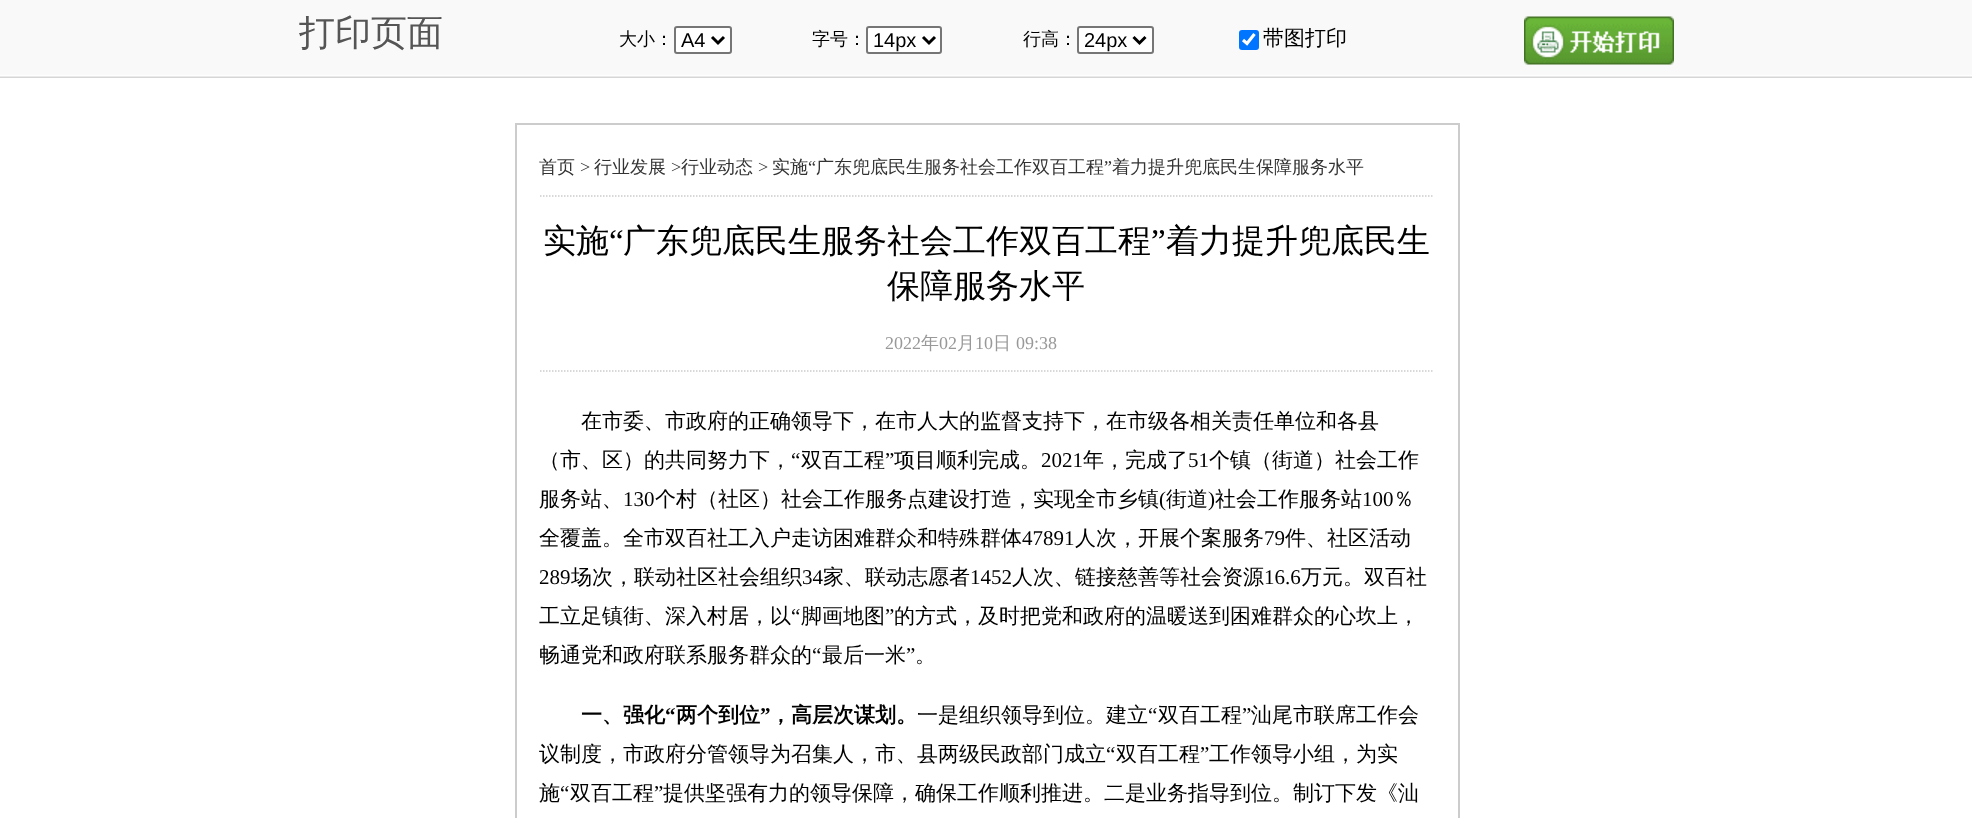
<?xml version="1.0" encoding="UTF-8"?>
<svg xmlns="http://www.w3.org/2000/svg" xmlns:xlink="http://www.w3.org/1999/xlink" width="1972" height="818">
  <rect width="100%" height="100%" fill="#ffffff" />
  <image x="0" y="0" width="1972" height="78" xlink:href="image1.png" />
  <rect x="675" y="27" width="56" height="26" rx="2" fill="#ffffff" stroke="#767676" stroke-width="2" />
  <path d="M 712 37 l 6 6 l 6 -6" fill="none" stroke="#000000" stroke-width="3" />
  <rect x="867" y="27" width="74" height="26" rx="2" fill="#ffffff" stroke="#767676" stroke-width="2" />
  <path d="M 923 37 l 6 6 l 6 -6" fill="none" stroke="#000000" stroke-width="3" />
  <rect x="1078" y="27" width="75" height="26" rx="2" fill="#ffffff" stroke="#767676" stroke-width="2" />
  <path d="M 1133.5 37 l 6 6 l 6 -6" fill="none" stroke="#000000" stroke-width="3" />
  <rect x="1239" y="30" width="20" height="20" rx="3" fill="#0075ff" />
  <path d="M 1243 40 l 4 3.5 l 7.5 -9.5" fill="none" stroke="#ffffff" stroke-width="3.1" />
  <image x="1524" y="16" width="150" height="49" xlink:href="image2.png" />
  <rect x="516" y="124" width="943" height="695" fill="none" stroke="#cccccc" stroke-width="2" />
  <path d="M 540 196 h 894" fill="none" stroke="#cccccc" stroke-width="1.5" stroke-dasharray="1.5 1.5" />
  <path d="M 540 371 h 894" fill="none" stroke="#cccccc" stroke-width="1.5" stroke-dasharray="1.5 1.5" />
  <text x="299" y="45" style="font-family: WenQuanYi Zen Hei; font-size: 36px; font-weight: 500; fill: #555555">打印页面</text>
  <text x="619" y="45" style="font-family: WenQuanYi Zen Hei; font-size: 18px; font-weight: 500; fill: #000000">大小：</text>
  <text x="681" y="47" style="font-family: Liberation Sans; font-size: 20px; fill: #000000">A4</text>
  <text x="812" y="45" style="font-family: WenQuanYi Zen Hei; font-size: 18px; font-weight: 500; fill: #000000">字号：</text>
  <text x="873" y="47" style="font-family: Liberation Sans; font-size: 20px; fill: #000000">14px</text>
  <text x="1023" y="45" style="font-family: WenQuanYi Zen Hei; font-size: 18px; font-weight: 500; fill: #000000">行高：</text>
  <text x="1084" y="47" style="font-family: Liberation Sans; font-size: 20px; fill: #000000">24px</text>
  <text x="1263" y="45" style="font-family: WenQuanYi Zen Hei; font-size: 21px; font-weight: 500; fill: #000000">带图打印</text>
  <text x="539" y="173" style="font-family: WenQuanYi Zen Hei; font-size: 18px; font-weight: 500; fill: #333333">首页</text>
  <text x="580" y="173" style="font-family: Liberation Serif; font-size: 18px; fill: #333333">&gt;</text>
  <text x="594" y="173" style="font-family: WenQuanYi Zen Hei; font-size: 18px; font-weight: 500; fill: #333333">行业发展</text>
  <text x="671" y="173" style="font-family: Liberation Serif; font-size: 18px; fill: #333333">&gt;</text>
  <text x="681" y="173" style="font-family: WenQuanYi Zen Hei; font-size: 18px; font-weight: 500; fill: #333333">行业动态</text>
  <text x="758" y="173" style="font-family: Liberation Serif; font-size: 18px; fill: #333333">&gt;</text>
  <text x="772" y="173" style="font-family: WenQuanYi Zen Hei; font-size: 18px; font-weight: 500; fill: #333333">实施</text>
  <text x="808" y="173" style="font-family: Liberation Serif; font-size: 18px; fill: #333333">“</text>
  <text x="816" y="173" style="font-family: WenQuanYi Zen Hei; font-size: 18px; font-weight: 500; fill: #333333">广东兜底民生服务社会工作双百工程</text>
  <text x="1104" y="173" style="font-family: Liberation Serif; font-size: 18px; fill: #333333">”</text>
  <text x="1112" y="173" style="font-family: WenQuanYi Zen Hei; font-size: 18px; font-weight: 500; fill: #333333">着力提升兜底民生保障服务水平</text>
  <text x="543" y="252" style="font-family: WenQuanYi Zen Hei; font-size: 33px; font-weight: 500; fill: #000000">实施</text>
  <text x="609" y="252" style="font-family: Liberation Serif; font-size: 33px; fill: #000000">“</text>
  <text x="623" y="252" style="font-family: WenQuanYi Zen Hei; font-size: 33px; font-weight: 500; fill: #000000">广东兜底民生服务社会工作双百工程</text>
  <text x="1151" y="252" style="font-family: Liberation Serif; font-size: 33px; fill: #000000">”</text>
  <text x="1166" y="252" style="font-family: WenQuanYi Zen Hei; font-size: 33px; font-weight: 500; fill: #000000">着力提升兜底民生</text>
  <text x="887" y="297" style="font-family: WenQuanYi Zen Hei; font-size: 33px; font-weight: 500; fill: #000000">保障服务水平</text>
  <text x="885" y="349" style="font-family: Liberation Serif; font-size: 18px; fill: #999999">2022</text>
  <text x="921" y="349" style="font-family: WenQuanYi Zen Hei; font-size: 18px; font-weight: 500; fill: #999999">年</text>
  <text x="939" y="349" style="font-family: Liberation Serif; font-size: 18px; fill: #999999">02</text>
  <text x="957" y="349" style="font-family: WenQuanYi Zen Hei; font-size: 18px; font-weight: 500; fill: #999999">月</text>
  <text x="975" y="349" style="font-family: Liberation Serif; font-size: 18px; fill: #999999">10</text>
  <text x="993" y="349" style="font-family: WenQuanYi Zen Hei; font-size: 18px; font-weight: 500; fill: #999999">日</text>
  <text x="1016" y="349" style="font-family: Liberation Serif; font-size: 18px; fill: #999999">09:38</text>
  <text x="581" y="428" style="font-family: WenQuanYi Zen Hei; font-size: 21px; font-weight: 500; fill: #000000">在市委、市政府的正确领导下，在市人大的监督支持下，在市级各相关责任单位和各县</text>
  <text x="539" y="467" style="font-family: WenQuanYi Zen Hei; font-size: 21px; font-weight: 500; fill: #000000">（市、区）的共同努力下，</text>
  <text x="791" y="467" style="font-family: Liberation Serif; font-size: 21px; fill: #000000">“</text>
  <text x="801" y="467" style="font-family: WenQuanYi Zen Hei; font-size: 21px; font-weight: 500; fill: #000000">双百工程</text>
  <text x="885" y="467" style="font-family: Liberation Serif; font-size: 21px; fill: #000000">”</text>
  <text x="894" y="467" style="font-family: WenQuanYi Zen Hei; font-size: 21px; font-weight: 500; fill: #000000">项目顺利完成。</text>
  <text x="1041" y="467" style="font-family: Liberation Serif; font-size: 21px; fill: #000000">2021</text>
  <text x="1083" y="467" style="font-family: WenQuanYi Zen Hei; font-size: 21px; font-weight: 500; fill: #000000">年，完成了</text>
  <text x="1188" y="467" style="font-family: Liberation Serif; font-size: 21px; fill: #000000">51</text>
  <text x="1209" y="467" style="font-family: WenQuanYi Zen Hei; font-size: 21px; font-weight: 500; fill: #000000">个镇（街道）社会工作</text>
  <text x="539" y="506" style="font-family: WenQuanYi Zen Hei; font-size: 21px; font-weight: 500; fill: #000000">服务站、</text>
  <text x="623" y="506" style="font-family: Liberation Serif; font-size: 21px; fill: #000000">130</text>
  <text x="655" y="506" style="font-family: WenQuanYi Zen Hei; font-size: 21px; font-weight: 500; fill: #000000">个村（社区）社会工作服务点建设打造，实现全市乡镇</text>
  <text x="1159" y="506" style="font-family: Liberation Serif; font-size: 21px; fill: #000000">(</text>
  <text x="1166" y="506" style="font-family: WenQuanYi Zen Hei; font-size: 21px; font-weight: 500; fill: #000000">街道</text>
  <text x="1208" y="506" style="font-family: Liberation Serif; font-size: 21px; fill: #000000">)</text>
  <text x="1215" y="506" style="font-family: WenQuanYi Zen Hei; font-size: 21px; font-weight: 500; fill: #000000">社会工作服务站</text>
  <text x="1362" y="506" style="font-family: Liberation Serif; font-size: 21px; fill: #000000">100</text>
  <text x="1393" y="506" style="font-family: WenQuanYi Zen Hei; font-size: 21px; font-weight: 500; fill: #000000">％</text>
  <text x="539" y="545" style="font-family: WenQuanYi Zen Hei; font-size: 21px; font-weight: 500; fill: #000000">全覆盖。全市双百社工入户走访困难群众和特殊群体</text>
  <text x="1022" y="545" style="font-family: Liberation Serif; font-size: 21px; fill: #000000">47891</text>
  <text x="1075" y="545" style="font-family: WenQuanYi Zen Hei; font-size: 21px; font-weight: 500; fill: #000000">人次，开展个案服务</text>
  <text x="1264" y="545" style="font-family: Liberation Serif; font-size: 21px; fill: #000000">79</text>
  <text x="1285" y="545" style="font-family: WenQuanYi Zen Hei; font-size: 21px; font-weight: 500; fill: #000000">件、社区活动</text>
  <text x="539" y="584" style="font-family: Liberation Serif; font-size: 21px; fill: #000000">289</text>
  <text x="571" y="584" style="font-family: WenQuanYi Zen Hei; font-size: 21px; font-weight: 500; fill: #000000">场次，联动社区社会组织</text>
  <text x="802" y="584" style="font-family: Liberation Serif; font-size: 21px; fill: #000000">34</text>
  <text x="823" y="584" style="font-family: WenQuanYi Zen Hei; font-size: 21px; font-weight: 500; fill: #000000">家、联动志愿者</text>
  <text x="970" y="584" style="font-family: Liberation Serif; font-size: 21px; fill: #000000">1452</text>
  <text x="1012" y="584" style="font-family: WenQuanYi Zen Hei; font-size: 21px; font-weight: 500; fill: #000000">人次、链接慈善等社会资源</text>
  <text x="1264" y="584" style="font-family: Liberation Serif; font-size: 21px; fill: #000000">16.6</text>
  <text x="1301" y="584" style="font-family: WenQuanYi Zen Hei; font-size: 21px; font-weight: 500; fill: #000000">万元。双百社</text>
  <text x="539" y="623" style="font-family: WenQuanYi Zen Hei; font-size: 21px; font-weight: 500; fill: #000000">工立足镇街、深入村居，以</text>
  <text x="791" y="623" style="font-family: Liberation Serif; font-size: 21px; fill: #000000">“</text>
  <text x="801" y="623" style="font-family: WenQuanYi Zen Hei; font-size: 21px; font-weight: 500; fill: #000000">脚画地图</text>
  <text x="885" y="623" style="font-family: Liberation Serif; font-size: 21px; fill: #000000">”</text>
  <text x="894" y="623" style="font-family: WenQuanYi Zen Hei; font-size: 21px; font-weight: 500; fill: #000000">的方式，及时把党和政府的温暖送到困难群众的心坎上，</text>
  <text x="539" y="662" style="font-family: WenQuanYi Zen Hei; font-size: 21px; font-weight: 500; fill: #000000">畅通党和政府联系服务群众的</text>
  <text x="812" y="662" style="font-family: Liberation Serif; font-size: 21px; fill: #000000">“</text>
  <text x="822" y="662" style="font-family: WenQuanYi Zen Hei; font-size: 21px; font-weight: 500; fill: #000000">最后一米</text>
  <text x="906" y="662" style="font-family: Liberation Serif; font-size: 21px; fill: #000000">”</text>
  <text x="915" y="662" style="font-family: WenQuanYi Zen Hei; font-size: 21px; font-weight: 500; fill: #000000">。</text>
  <text x="581" y="722" style="font-family: WenQuanYi Zen Hei; font-size: 21px; font-weight: bold; fill: #000000">一、强化</text>
  <text x="665" y="722" style="font-family: Liberation Serif; font-size: 21px; font-weight: bold; fill: #000000">“</text>
  <text x="676" y="722" style="font-family: WenQuanYi Zen Hei; font-size: 21px; font-weight: bold; fill: #000000">两个到位</text>
  <text x="760" y="722" style="font-family: Liberation Serif; font-size: 21px; font-weight: bold; fill: #000000">”</text>
  <text x="770" y="722" style="font-family: WenQuanYi Zen Hei; font-size: 21px; font-weight: bold; fill: #000000">，高层次谋划。</text>
  <text x="917" y="722" style="font-family: WenQuanYi Zen Hei; font-size: 21px; font-weight: 500; fill: #000000">一是组织领导到位。建立</text>
  <text x="1148" y="722" style="font-family: Liberation Serif; font-size: 21px; fill: #000000">“</text>
  <text x="1158" y="722" style="font-family: WenQuanYi Zen Hei; font-size: 21px; font-weight: 500; fill: #000000">双百工程</text>
  <text x="1242" y="722" style="font-family: Liberation Serif; font-size: 21px; fill: #000000">”</text>
  <text x="1251" y="722" style="font-family: WenQuanYi Zen Hei; font-size: 21px; font-weight: 500; fill: #000000">汕尾市联席工作会</text>
  <text x="539" y="761" style="font-family: WenQuanYi Zen Hei; font-size: 21px; font-weight: 500; fill: #000000">议制度，市政府分管领导为召集人，市、县两级民政部门成立</text>
  <text x="1106" y="761" style="font-family: Liberation Serif; font-size: 21px; fill: #000000">“</text>
  <text x="1116" y="761" style="font-family: WenQuanYi Zen Hei; font-size: 21px; font-weight: 500; fill: #000000">双百工程</text>
  <text x="1200" y="761" style="font-family: Liberation Serif; font-size: 21px; fill: #000000">”</text>
  <text x="1209" y="761" style="font-family: WenQuanYi Zen Hei; font-size: 21px; font-weight: 500; fill: #000000">工作领导小组，为实</text>
  <text x="539" y="800" style="font-family: WenQuanYi Zen Hei; font-size: 21px; font-weight: 500; fill: #000000">施</text>
  <text x="560" y="800" style="font-family: Liberation Serif; font-size: 21px; fill: #000000">“</text>
  <text x="570" y="800" style="font-family: WenQuanYi Zen Hei; font-size: 21px; font-weight: 500; fill: #000000">双百工程</text>
  <text x="654" y="800" style="font-family: Liberation Serif; font-size: 21px; fill: #000000">”</text>
  <text x="663" y="800" style="font-family: WenQuanYi Zen Hei; font-size: 21px; font-weight: 500; fill: #000000">提供坚强有力的领导保障，确保工作顺利推进。二是业务指导到位。制订下发《汕</text>
</svg>
